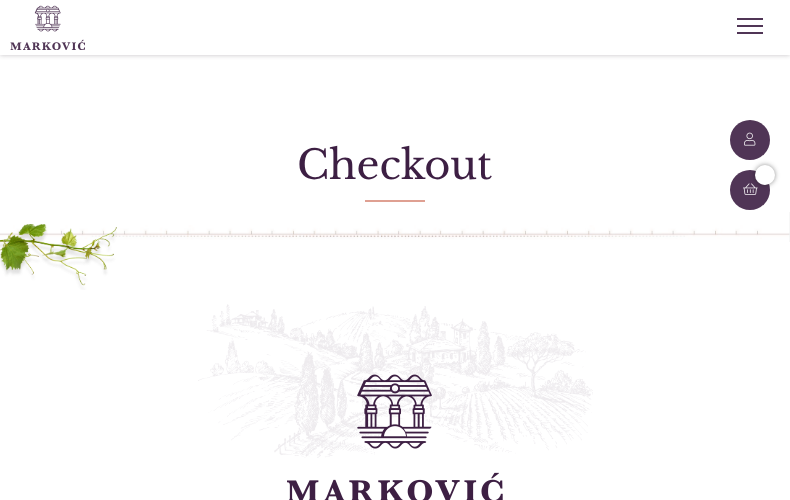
<?xml version="1.0" encoding="UTF-8"?>
<svg xmlns="http://www.w3.org/2000/svg" xmlns:xlink="http://www.w3.org/1999/xlink" width="790" height="500">
  <defs>
    <clipPath id="clip1"><rect x="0" y="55" width="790" height="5" /></clipPath>
  </defs>
  <rect width="100%" height="100%" fill="#ffffff" />
  <g clip-path="url(#clip1)">
    <rect width="790" height="55" fill="#c4c0c4" filter="blur(2.5px)" />
  </g>
  <image x="10" y="5" width="75" height="45" xlink:href="image1.png" />
  <rect x="737" y="25" width="26" height="2" fill="#503556" />
  <rect x="737" y="18" width="26" height="2" fill="#503556" />
  <rect x="737" y="32" width="26" height="2" fill="#503556" />
  <circle cx="750" cy="140" r="20" fill="#503556" />
  <image x="744" y="132" width="12" height="14" xlink:href="image2.png" />
  <circle cx="750" cy="190" r="20" fill="#503556" />
  <image x="743" y="183" width="15" height="12" xlink:href="image3.png" />
  <rect x="755" y="165" width="20" height="20" rx="10" fill="#1a1a1a" fill-opacity="0.5" filter="blur(2.5px)" />
  <circle cx="765" cy="175" r="10" fill="#ffffff" />
  <rect x="365" y="200" width="60" height="2" fill="#dfa092" />
  <image x="0" y="212" width="790" height="30" xlink:href="image5.png" />
  <image x="0" y="224" width="117" height="66" xlink:href="image4.png" />
  <image x="198" y="304" width="395" height="154" xlink:href="image6.png" />
  <image x="287" y="374" width="216" height="126" xlink:href="image7.png" />
  <text x="297" y="179" style="font-family: Libre Baskerville; font-size: 40px; fill: #3d1f43">Checkout</text>
</svg>
